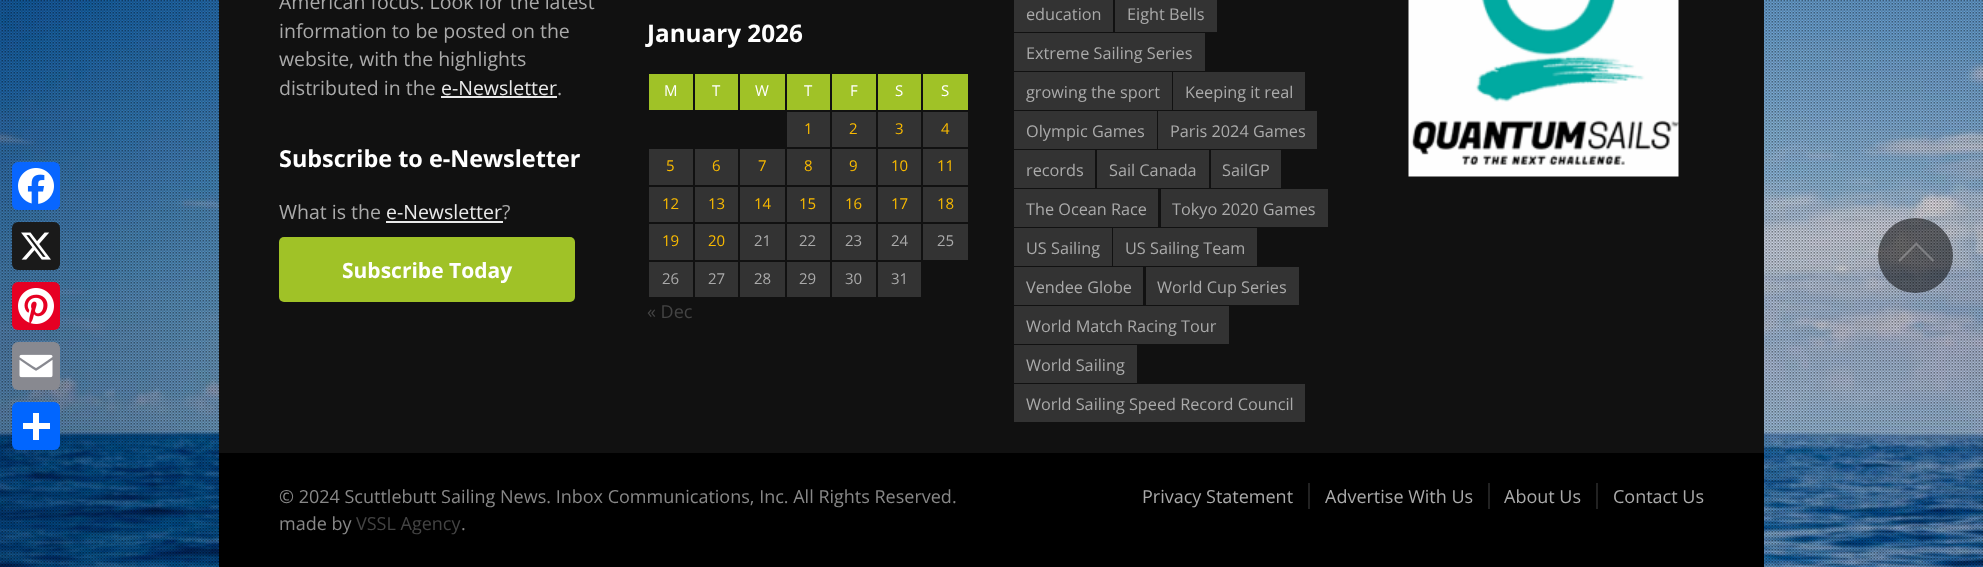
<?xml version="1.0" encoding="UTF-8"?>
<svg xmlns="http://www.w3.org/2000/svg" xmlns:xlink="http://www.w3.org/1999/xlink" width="1983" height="567">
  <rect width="100%" height="100%" fill="#ffffff" />
  <image x="0" y="0" width="1983" height="567" xlink:href="image1.png" />
  <image x="0" y="0" width="1983" height="567" xlink:href="image2.png" />
  <rect x="12" y="162" width="48" height="48" rx="6" fill="#0866ff" />
  <image x="18" y="168" width="36" height="36" xlink:href="image3.png" />
  <rect x="12" y="222" width="48" height="48" rx="6" fill="#1a1a1a" />
  <image x="21" y="232" width="30" height="28" xlink:href="image4.png" />
  <rect x="12" y="282" width="48" height="48" rx="6" fill="#e60023" />
  <image x="18" y="288" width="36" height="36" xlink:href="image5.png" />
  <rect x="12" y="342" width="48" height="48" rx="6" fill="#888990" />
  <image x="19" y="354" width="34" height="24" xlink:href="image6.png" />
  <rect x="12" y="402" width="48" height="48" rx="6" fill="#0166ff" />
  <rect x="33" y="413" width="6" height="27" fill="#ffffff" />
  <rect x="23" y="423" width="27" height="6" fill="#ffffff" />
  <rect x="219" width="1545" height="453" fill="#111111" />
  <rect x="441" y="96" width="116" height="2" fill="#eaeaea" />
  <rect x="386" y="221" width="117" height="2" fill="#eaeaea" />
  <rect x="279" y="237" width="296" height="65" rx="5" fill="#a0c227" />
  <rect x="649" y="74" width="44" height="36" fill="#a0c227" />
  <rect x="695" y="74" width="43" height="36" fill="#a0c227" />
  <rect x="740" y="74" width="45" height="36" fill="#a0c227" />
  <rect x="787" y="74" width="43" height="36" fill="#a0c227" />
  <rect x="832" y="74" width="44" height="36" fill="#a0c227" />
  <rect x="878" y="74" width="43" height="36" fill="#a0c227" />
  <rect x="923" y="74" width="45" height="36" fill="#a0c227" />
  <rect x="787" y="112" width="43" height="35" fill="#333333" />
  <rect x="832" y="112" width="44" height="35" fill="#333333" />
  <rect x="878" y="112" width="43" height="35" fill="#333333" />
  <rect x="923" y="112" width="45" height="35" fill="#333333" />
  <rect x="649" y="149" width="44" height="36" fill="#333333" />
  <rect x="695" y="149" width="43" height="36" fill="#333333" />
  <rect x="740" y="149" width="45" height="36" fill="#333333" />
  <rect x="787" y="149" width="43" height="36" fill="#333333" />
  <rect x="832" y="149" width="44" height="36" fill="#333333" />
  <rect x="878" y="149" width="43" height="36" fill="#333333" />
  <rect x="923" y="149" width="45" height="36" fill="#333333" />
  <rect x="649" y="187" width="44" height="35" fill="#333333" />
  <rect x="695" y="187" width="43" height="35" fill="#333333" />
  <rect x="740" y="187" width="45" height="35" fill="#333333" />
  <rect x="787" y="187" width="43" height="35" fill="#333333" />
  <rect x="832" y="187" width="44" height="35" fill="#333333" />
  <rect x="878" y="187" width="43" height="35" fill="#333333" />
  <rect x="923" y="187" width="45" height="35" fill="#333333" />
  <rect x="649" y="224" width="44" height="36" fill="#333333" />
  <rect x="695" y="224" width="43" height="36" fill="#333333" />
  <rect x="740" y="224" width="45" height="36" fill="#333333" />
  <rect x="787" y="224" width="43" height="36" fill="#333333" />
  <rect x="832" y="224" width="44" height="36" fill="#333333" />
  <rect x="878" y="224" width="43" height="36" fill="#333333" />
  <rect x="923" y="224" width="45" height="36" fill="#333333" />
  <rect x="649" y="262" width="44" height="35" fill="#333333" />
  <rect x="695" y="262" width="43" height="35" fill="#333333" />
  <rect x="740" y="262" width="45" height="35" fill="#333333" />
  <rect x="787" y="262" width="43" height="35" fill="#333333" />
  <rect x="832" y="262" width="44" height="35" fill="#333333" />
  <rect x="878" y="262" width="43" height="35" fill="#333333" />
  <rect x="1014" width="99" height="32" fill="#333333" />
  <rect x="1115" width="102" height="32" fill="#333333" />
  <rect x="1014" y="33" width="191" height="38" fill="#333333" />
  <rect x="1014" y="72" width="158" height="38" fill="#333333" />
  <rect x="1173" y="72" width="132" height="38" fill="#333333" />
  <rect x="1014" y="111" width="143" height="38" fill="#333333" />
  <rect x="1158" y="111" width="159" height="38" fill="#333333" />
  <rect x="1014" y="150" width="81" height="38" fill="#333333" />
  <rect x="1097" y="150" width="112" height="38" fill="#333333" />
  <rect x="1211" y="150" width="70" height="38" fill="#333333" />
  <rect x="1014" y="189" width="144" height="38" fill="#333333" />
  <rect x="1161" y="189" width="167" height="38" fill="#333333" />
  <rect x="1014" y="228" width="98" height="38" fill="#333333" />
  <rect x="1113" y="228" width="144" height="38" fill="#333333" />
  <rect x="1014" y="267" width="129" height="38" fill="#333333" />
  <rect x="1146" y="267" width="153" height="38" fill="#333333" />
  <rect x="1014" y="306" width="215" height="38" fill="#333333" />
  <rect x="1014" y="345" width="123" height="38" fill="#333333" />
  <rect x="1014" y="384" width="291" height="38" fill="#333333" />
  <image x="1408" y="0" width="271" height="177" xlink:href="image7.png" />
  <circle cx="1915.5" cy="255.5" r="37.5" fill="#000000" fill-opacity="0.5" />
  <image x="1898" y="242" width="36" height="20" xlink:href="image8.png" />
  <rect x="219" y="453" width="1545" height="114" fill="#000000" />
  <rect x="1308" y="483" width="2" height="26" fill="#222222" />
  <rect x="1488" y="483" width="2" height="26" fill="#222222" />
  <rect x="1596" y="483" width="2" height="26" fill="#222222" />
  <text x="279" y="9" style="font-family: Open Sans; font-size: 19.5px; fill: #aaaaaa">American focus. Look for the latest</text>
  <text x="279" y="38" style="font-family: Open Sans; font-size: 19.5px; fill: #aaaaaa">information to be posted on the</text>
  <text x="279" y="66" style="font-family: Open Sans; font-size: 19.5px; fill: #aaaaaa">website, with the highlights</text>
  <text x="279" y="95" style="font-family: Open Sans; font-size: 19.5px; fill: #aaaaaa">distributed in the</text>
  <text x="441" y="95" style="font-family: Open Sans; font-size: 19.5px; fill: #eaeaea">e-Newsletter</text>
  <text x="557" y="95" style="font-family: Open Sans; font-size: 19.5px; fill: #aaaaaa">.</text>
  <text x="279" y="167" style="font-family: Open Sans; font-size: 23.4px; font-weight: bold; fill: #ffffff">Subscribe to e-Newsletter</text>
  <text x="279" y="219" style="font-family: Open Sans; font-size: 19.5px; fill: #aaaaaa">What is the</text>
  <text x="386" y="219" style="font-family: Open Sans; font-size: 19.5px; fill: #eaeaea">e-Newsletter</text>
  <text x="502" y="219" style="font-family: Open Sans; font-size: 19.5px; fill: #aaaaaa">?</text>
  <text x="342" y="278" style="font-family: Open Sans; font-size: 21px; font-weight: bold; fill: #ffffff">Subscribe Today</text>
  <text x="647" y="42" style="font-family: Open Sans; font-size: 24.25px; font-weight: bold; fill: #ffffff">January 2026</text>
  <text x="664" y="96" style="font-family: Open Sans; font-size: 15px; fill: #ffffff">M</text>
  <text x="712" y="96" style="font-family: Open Sans; font-size: 15px; fill: #ffffff">T</text>
  <text x="755" y="96" style="font-family: Open Sans; font-size: 15px; fill: #ffffff">W</text>
  <text x="804" y="96" style="font-family: Open Sans; font-size: 15px; fill: #ffffff">T</text>
  <text x="850" y="96" style="font-family: Open Sans; font-size: 15px; fill: #ffffff">F</text>
  <text x="895" y="96" style="font-family: Open Sans; font-size: 15px; fill: #ffffff">S</text>
  <text x="941" y="96" style="font-family: Open Sans; font-size: 15px; fill: #ffffff">S</text>
  <text x="804" y="134" style="font-family: Open Sans; font-size: 15px; fill: #f9ba00">1</text>
  <text x="849" y="134" style="font-family: Open Sans; font-size: 15px; fill: #f9ba00">2</text>
  <text x="895" y="134" style="font-family: Open Sans; font-size: 15px; fill: #f9ba00">3</text>
  <text x="941" y="134" style="font-family: Open Sans; font-size: 15px; fill: #f9ba00">4</text>
  <text x="666" y="171" style="font-family: Open Sans; font-size: 15px; fill: #f9ba00">5</text>
  <text x="712" y="171" style="font-family: Open Sans; font-size: 15px; fill: #f9ba00">6</text>
  <text x="758" y="171" style="font-family: Open Sans; font-size: 15px; fill: #f9ba00">7</text>
  <text x="804" y="171" style="font-family: Open Sans; font-size: 15px; fill: #f9ba00">8</text>
  <text x="849" y="171" style="font-family: Open Sans; font-size: 15px; fill: #f9ba00">9</text>
  <text x="891" y="171" style="font-family: Open Sans; font-size: 15px; fill: #f9ba00">10</text>
  <text x="937" y="171" style="font-family: Open Sans; font-size: 15px; fill: #f9ba00">11</text>
  <text x="662" y="209" style="font-family: Open Sans; font-size: 15px; fill: #f9ba00">12</text>
  <text x="708" y="209" style="font-family: Open Sans; font-size: 15px; fill: #f9ba00">13</text>
  <text x="754" y="209" style="font-family: Open Sans; font-size: 15px; fill: #f9ba00">14</text>
  <text x="799" y="209" style="font-family: Open Sans; font-size: 15px; fill: #f9ba00">15</text>
  <text x="845" y="209" style="font-family: Open Sans; font-size: 15px; fill: #f9ba00">16</text>
  <text x="891" y="209" style="font-family: Open Sans; font-size: 15px; fill: #f9ba00">17</text>
  <text x="937" y="209" style="font-family: Open Sans; font-size: 15px; fill: #f9ba00">18</text>
  <text x="662" y="246" style="font-family: Open Sans; font-size: 15px; fill: #f9ba00">19</text>
  <text x="708" y="246" style="font-family: Open Sans; font-size: 15px; fill: #f9ba00">20</text>
  <text x="754" y="246" style="font-family: Open Sans; font-size: 15px; fill: #aaaaaa">21</text>
  <text x="799" y="246" style="font-family: Open Sans; font-size: 15px; fill: #aaaaaa">22</text>
  <text x="845" y="246" style="font-family: Open Sans; font-size: 15px; fill: #aaaaaa">23</text>
  <text x="891" y="246" style="font-family: Open Sans; font-size: 15px; fill: #aaaaaa">24</text>
  <text x="937" y="246" style="font-family: Open Sans; font-size: 15px; fill: #aaaaaa">25</text>
  <text x="662" y="284" style="font-family: Open Sans; font-size: 15px; fill: #aaaaaa">26</text>
  <text x="708" y="284" style="font-family: Open Sans; font-size: 15px; fill: #aaaaaa">27</text>
  <text x="754" y="284" style="font-family: Open Sans; font-size: 15px; fill: #aaaaaa">28</text>
  <text x="799" y="284" style="font-family: Open Sans; font-size: 15px; fill: #aaaaaa">29</text>
  <text x="845" y="284" style="font-family: Open Sans; font-size: 15px; fill: #aaaaaa">30</text>
  <text x="891" y="284" style="font-family: Open Sans; font-size: 15px; fill: #aaaaaa">31</text>
  <text x="647" y="318" style="font-family: Open Sans; font-size: 18px; fill: #444444">« Dec</text>
  <text x="1026" y="20" style="font-family: Open Sans; font-size: 16.25px; fill: #aaaaaa">education</text>
  <text x="1127" y="20" style="font-family: Open Sans; font-size: 16.25px; fill: #aaaaaa">Eight Bells</text>
  <text x="1026" y="59" style="font-family: Open Sans; font-size: 16.25px; fill: #aaaaaa">Extreme Sailing Series</text>
  <text x="1026" y="98" style="font-family: Open Sans; font-size: 16.25px; fill: #aaaaaa">growing the sport</text>
  <text x="1185" y="98" style="font-family: Open Sans; font-size: 16.25px; fill: #aaaaaa">Keeping it real</text>
  <text x="1026" y="137" style="font-family: Open Sans; font-size: 16.25px; fill: #aaaaaa">Olympic Games</text>
  <text x="1170" y="137" style="font-family: Open Sans; font-size: 16.25px; fill: #aaaaaa">Paris 2024 Games</text>
  <text x="1026" y="176" style="font-family: Open Sans; font-size: 16.25px; fill: #aaaaaa">records</text>
  <text x="1109" y="176" style="font-family: Open Sans; font-size: 16.25px; fill: #aaaaaa">Sail Canada</text>
  <text x="1222" y="176" style="font-family: Open Sans; font-size: 16.25px; fill: #aaaaaa">SailGP</text>
  <text x="1026" y="215" style="font-family: Open Sans; font-size: 16.25px; fill: #aaaaaa">The Ocean Race</text>
  <text x="1172" y="215" style="font-family: Open Sans; font-size: 16.25px; fill: #aaaaaa">Tokyo 2020 Games</text>
  <text x="1026" y="254" style="font-family: Open Sans; font-size: 16.25px; fill: #aaaaaa">US Sailing</text>
  <text x="1125" y="254" style="font-family: Open Sans; font-size: 16.25px; fill: #aaaaaa">US Sailing Team</text>
  <text x="1026" y="293" style="font-family: Open Sans; font-size: 16.25px; fill: #aaaaaa">Vendee Globe</text>
  <text x="1157" y="293" style="font-family: Open Sans; font-size: 16.25px; fill: #aaaaaa">World Cup Series</text>
  <text x="1026" y="332" style="font-family: Open Sans; font-size: 16.25px; fill: #aaaaaa">World Match Racing Tour</text>
  <text x="1026" y="371" style="font-family: Open Sans; font-size: 16.25px; fill: #aaaaaa">World Sailing</text>
  <text x="1026" y="410" style="font-family: Open Sans; font-size: 16.25px; fill: #aaaaaa">World Sailing Speed Record Council</text>
  <text x="279" y="503" style="font-family: Open Sans; font-size: 18px; fill: #888888">© 2024 Scuttlebutt Sailing News. Inbox Communications, Inc. All Rights Reserved.</text>
  <text x="279" y="530" style="font-family: Open Sans; font-size: 18px; fill: #888888">made by</text>
  <text x="356" y="530" style="font-family: Open Sans; font-size: 18px; fill: #444444">VSSL Agency</text>
  <text x="461" y="530" style="font-family: Open Sans; font-size: 18px; fill: #888888">.</text>
  <text x="1142" y="503" style="font-family: Open Sans; font-size: 18px; fill: #aaaaaa">Privacy Statement</text>
  <text x="1325" y="503" style="font-family: Open Sans; font-size: 18px; fill: #aaaaaa">Advertise With Us</text>
  <text x="1504" y="503" style="font-family: Open Sans; font-size: 18px; fill: #aaaaaa">About Us</text>
  <text x="1613" y="503" style="font-family: Open Sans; font-size: 18px; fill: #aaaaaa">Contact Us</text>
</svg>
